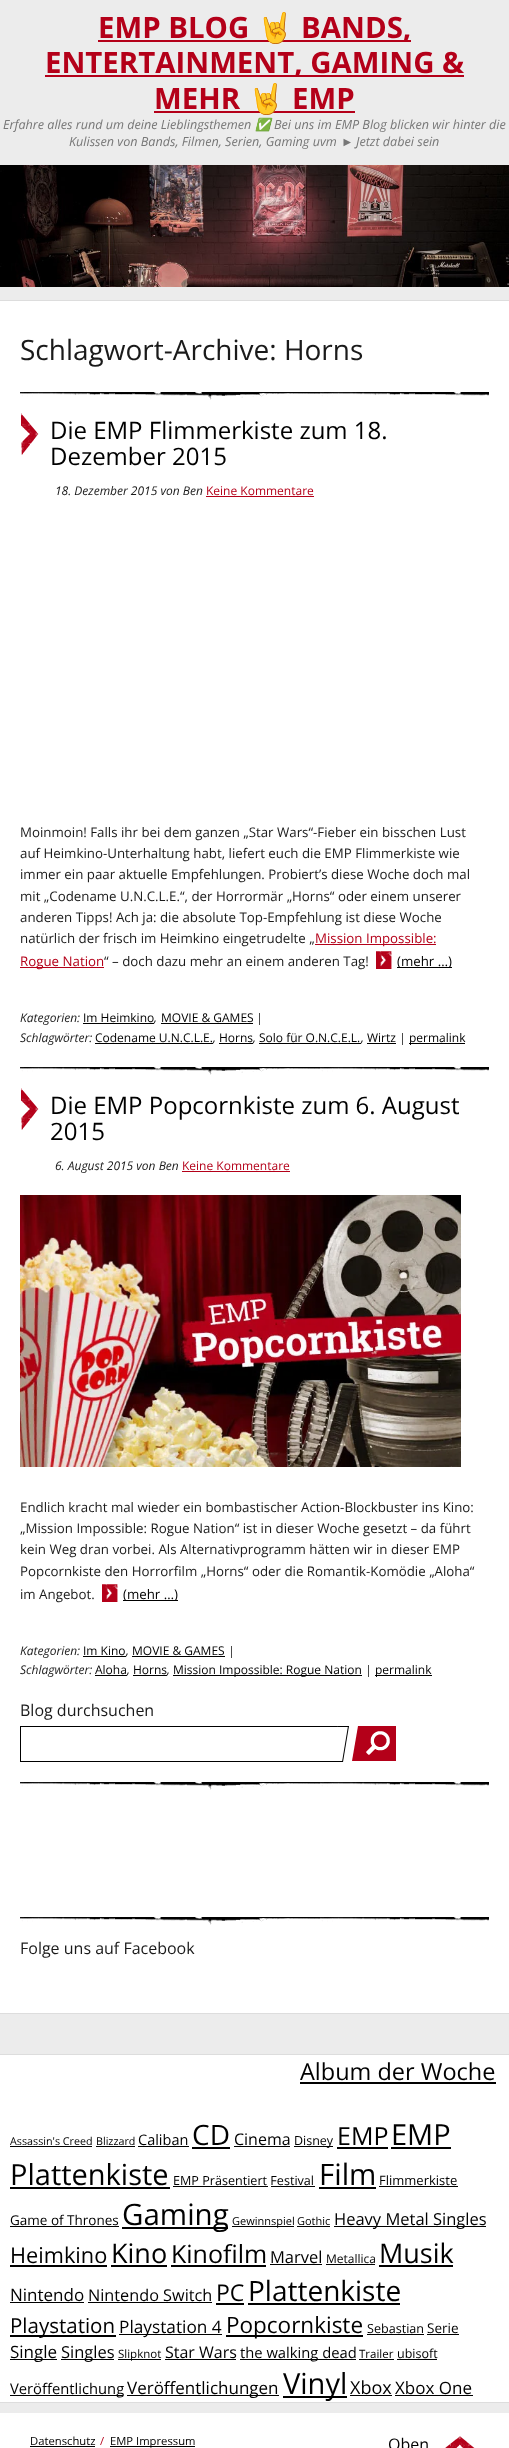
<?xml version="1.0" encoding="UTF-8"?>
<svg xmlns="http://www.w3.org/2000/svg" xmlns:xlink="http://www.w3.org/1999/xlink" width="509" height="2448">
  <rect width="100%" height="100%" fill="#ececec" />
  <rect x="98" y="40" width="313" height="2" fill="#b40019" />
  <rect x="45" y="75" width="419" height="2" fill="#b40019" />
  <rect x="154" y="111" width="201" height="2" fill="#b40019" />
  <image x="0" y="165" width="509" height="122" xlink:href="image1.png" />
  <rect y="301" width="509" height="1712" fill="#ffffff" />
  <rect y="300" width="509" height="1" fill="#dddddd" />
  <rect y="2013" width="509" height="1" fill="#dddddd" />
  <image x="20" y="392" width="469" height="8" xlink:href="image2.png" />
  <image x="21" y="413" width="18" height="42" xlink:href="image3.png" />
  <rect x="206" y="496" width="108" height="1" fill="#b40019" />
  <rect x="315" y="944" width="121" height="1" fill="#b40019" />
  <rect x="20" y="967" width="84" height="1" fill="#b40019" />
  <image x="376" y="951" width="16" height="18" xlink:href="image4.png" />
  <rect x="397" y="967" width="55" height="1" fill="#000000" />
  <rect x="83" y="1023" width="71" height="1" fill="#000000" />
  <rect x="161" y="1023" width="92" height="1" fill="#000000" />
  <rect x="95" y="1043" width="118" height="1" fill="#000000" />
  <rect x="219" y="1043" width="34" height="1" fill="#000000" />
  <rect x="259" y="1043" width="102" height="1" fill="#000000" />
  <rect x="367" y="1043" width="29" height="1" fill="#000000" />
  <rect x="409" y="1043" width="56" height="1" fill="#000000" />
  <image x="20" y="1067" width="469" height="8" xlink:href="image2.png" />
  <image x="21" y="1088" width="18" height="42" xlink:href="image3.png" />
  <rect x="182" y="1171" width="108" height="1" fill="#b40019" />
  <image x="20" y="1195" width="441" height="272" xlink:href="image5.png" />
  <image x="102" y="1584" width="16" height="18" xlink:href="image6.png" />
  <rect x="123" y="1600" width="55" height="1" fill="#000000" />
  <rect x="83" y="1656" width="43" height="1" fill="#000000" />
  <rect x="132" y="1656" width="93" height="1" fill="#000000" />
  <rect x="95" y="1675" width="32" height="1" fill="#000000" />
  <rect x="133" y="1675" width="34" height="1" fill="#000000" />
  <rect x="173" y="1675" width="189" height="1" fill="#000000" />
  <rect x="375" y="1675" width="57" height="1" fill="#000000" />
  <rect x="20.5" y="1726.5" width="321" height="35" fill="none" stroke="#000000" />
  <path d="M 338 1726 h 11 l -6 36 h -11 z" fill="#ffffff" />
  <rect x="338" y="1726" width="11" height="1" fill="#000000" />
  <path d="M 348 1726 h 1 l -6 36 h -1 z" fill="#000000" />
  <rect x="332" y="1761" width="11" height="1" fill="#000000" />
  <path d="M 358 1726 h 10 l -6 35 h -10 z" fill="#b40019" />
  <rect x="362" y="1726" width="34" height="35" fill="#b40019" />
  <image x="366" y="1731" width="24" height="24" xlink:href="image7.png" />
  <image x="20" y="1782" width="469" height="8" xlink:href="image2.png" />
  <image x="20" y="1917" width="469" height="8" xlink:href="image2.png" />
  <rect y="2055" width="509" height="347" fill="#ffffff" />
  <rect y="2054" width="509" height="1" fill="#dddddd" />
  <rect y="2402" width="509" height="1" fill="#dddddd" />
  <rect x="300" y="2082" width="196" height="2" fill="#000000" />
  <rect x="10" y="2146" width="82" height="1" fill="#000000" />
  <rect x="96" y="2146" width="39" height="1" fill="#000000" />
  <rect x="138" y="2146" width="51" height="1" fill="#000000" />
  <rect x="192" y="2147" width="38" height="2" fill="#000000" />
  <rect x="234" y="2146" width="56" height="1" fill="#000000" />
  <rect x="294" y="2146" width="39" height="1" fill="#000000" />
  <rect x="337" y="2147" width="51" height="2" fill="#000000" />
  <rect x="391" y="2147" width="60" height="2" fill="#000000" />
  <rect x="10" y="2187" width="160" height="2" fill="#000000" />
  <rect x="173" y="2186" width="95" height="1" fill="#000000" />
  <rect x="319" y="2187" width="57" height="2" fill="#000000" />
  <rect x="379" y="2186" width="79" height="1" fill="#000000" />
  <rect x="271" y="2186" width="44" height="1" fill="#000000" />
  <rect x="10" y="2226" width="109" height="1" fill="#000000" />
  <rect x="122" y="2227" width="106" height="2" fill="#000000" />
  <rect x="232" y="2226" width="62" height="1" fill="#000000" />
  <rect x="297" y="2226" width="33" height="1" fill="#000000" />
  <rect x="334" y="2226" width="152" height="1" fill="#000000" />
  <rect x="10" y="2265" width="97" height="2" fill="#000000" />
  <rect x="111" y="2265" width="56" height="2" fill="#000000" />
  <rect x="171" y="2265" width="95" height="2" fill="#000000" />
  <rect x="270" y="2264" width="52" height="1" fill="#000000" />
  <rect x="326" y="2264" width="49" height="1" fill="#000000" />
  <rect x="379" y="2265" width="74" height="2" fill="#000000" />
  <rect x="10" y="2302" width="74" height="1" fill="#000000" />
  <rect x="88" y="2302" width="124" height="1" fill="#000000" />
  <rect x="216" y="2303" width="28" height="2" fill="#000000" />
  <rect x="248" y="2303" width="152" height="2" fill="#000000" />
  <rect x="10" y="2335" width="106" height="2" fill="#000000" />
  <rect x="119" y="2334" width="103" height="1" fill="#000000" />
  <rect x="226" y="2335" width="137" height="2" fill="#000000" />
  <rect x="367" y="2334" width="57" height="1" fill="#000000" />
  <rect x="427" y="2334" width="32" height="1" fill="#000000" />
  <rect x="10" y="2359" width="47" height="1" fill="#000000" />
  <rect x="61" y="2359" width="53" height="1" fill="#000000" />
  <rect x="118" y="2359" width="43" height="1" fill="#000000" />
  <rect x="165" y="2359" width="71" height="1" fill="#000000" />
  <rect x="240" y="2359" width="116" height="1" fill="#000000" />
  <rect x="359" y="2359" width="35" height="1" fill="#000000" />
  <rect x="397" y="2359" width="40" height="1" fill="#000000" />
  <rect x="10" y="2395" width="113" height="1" fill="#000000" />
  <rect x="127" y="2395" width="152" height="1" fill="#000000" />
  <rect x="283" y="2396" width="64" height="2" fill="#000000" />
  <rect x="350" y="2395" width="42" height="1" fill="#000000" />
  <rect x="395" y="2395" width="78" height="1" fill="#000000" />
  <rect y="2413" width="509" height="35" fill="#ffffff" />
  <rect x="30" y="2446" width="65" height="1" fill="#000000" />
  <rect x="110" y="2446" width="85" height="1" fill="#000000" />
  <image x="445" y="2436" width="30" height="12" xlink:href="image8.png" />
  <text x="98" y="38" style="font-family: Open Sans; font-size: 29.4px; font-weight: bold; fill: #b40019">EMP BLOG</text>
  <text x="257" y="38" style="font-family: Noto Color Emoji; font-size: 29.4px; font-weight: bold; fill: #b40019">🤘</text>
  <text x="301" y="38" style="font-family: Open Sans; font-size: 29.4px; font-weight: bold; fill: #b40019">BANDS,</text>
  <text x="45" y="73" style="font-family: Open Sans; font-size: 29.4px; font-weight: bold; fill: #b40019">ENTERTAINMENT, GAMING &amp;</text>
  <text x="154" y="109" style="font-family: Open Sans; font-size: 29.4px; font-weight: bold; fill: #b40019">MEHR</text>
  <text x="248" y="109" style="font-family: Noto Color Emoji; font-size: 29.4px; font-weight: bold; fill: #b40019">🤘</text>
  <text x="292" y="109" style="font-family: Open Sans; font-size: 29.4px; font-weight: bold; fill: #b40019">EMP</text>
  <text x="3" y="129" style="font-family: Open Sans; font-size: 12.6px; font-style: italic; fill: #777777">Erfahre alles rund um deine Lieblingsthemen</text>
  <text x="255" y="129" style="font-family: Noto Color Emoji; font-size: 12.6px; font-style: italic; fill: #777777">✅</text>
  <text x="274" y="129" style="font-family: Open Sans; font-size: 12.6px; font-style: italic; fill: #777777">Bei uns im EMP Blog blicken wir hinter die</text>
  <text x="69" y="146" style="font-family: Open Sans; font-size: 12.6px; font-style: italic; fill: #777777">Kulissen von Bands, Filmen, Serien, Gaming uvm</text>
  <text x="341" y="146" style="font-family: Liberation Sans; font-size: 12.6px; font-style: italic; fill: #777777">►</text>
  <text x="356" y="146" style="font-family: Open Sans; font-size: 12.6px; font-style: italic; fill: #777777">Jetzt dabei sein</text>
  <text x="20" y="360" style="font-family: Open Sans; font-size: 28px; fill: #1a1a1a">Schlagwort-Archive: Horns</text>
  <text x="50" y="439" style="font-family: Open Sans; font-size: 24px; fill: #000000">Die EMP Flimmerkiste zum 18.</text>
  <text x="50" y="465" style="font-family: Open Sans; font-size: 24px; fill: #000000">Dezember 2015</text>
  <text x="55" y="495" style="font-family: Open Sans; font-size: 12px; font-style: italic; fill: #1a1a1a">18. Dezember 2015 von Ben</text>
  <text x="206" y="495" style="font-family: Open Sans; font-size: 12px; fill: #b40019">Keine Kommentare</text>
  <text x="20" y="837" style="font-family: Open Sans; font-size: 13.3px; fill: #1a1a1a">Moinmoin! Falls ihr bei dem ganzen „Star Wars“-Fieber ein bisschen Lust</text>
  <text x="20" y="858" style="font-family: Open Sans; font-size: 13.3px; fill: #1a1a1a">auf Heimkino-Unterhaltung habt, liefert euch die EMP Flimmerkiste wie</text>
  <text x="20" y="879" style="font-family: Open Sans; font-size: 13.3px; fill: #1a1a1a">immer ein paar aktuelle Empfehlungen. Probiert’s diese Woche doch mal</text>
  <text x="20" y="901" style="font-family: Open Sans; font-size: 13.3px; fill: #1a1a1a">mit „Codename U.N.C.L.E.“, der Horrormär „Horns“ oder einem unserer</text>
  <text x="20" y="922" style="font-family: Open Sans; font-size: 13.3px; fill: #1a1a1a">anderen Tipps! Ach ja: die absolute Top-Empfehlung ist diese Woche</text>
  <text x="20" y="943" style="font-family: Open Sans; font-size: 13.3px; fill: #1a1a1a">natürlich der frisch im Heimkino eingetrudelte „</text>
  <text x="315" y="943" style="font-family: Open Sans; font-size: 13.3px; fill: #b40019">Mission Impossible:</text>
  <text x="20" y="966" style="font-family: Open Sans; font-size: 13.3px; fill: #b40019">Rogue Nation</text>
  <text x="104" y="966" style="font-family: Open Sans; font-size: 13.3px; fill: #1a1a1a">“ – doch dazu mehr an einem anderen Tag!</text>
  <text x="397" y="966" style="font-family: Open Sans; font-size: 13.3px; fill: #000000">(mehr …)</text>
  <text x="20" y="1022" style="font-family: Open Sans; font-size: 12px; font-style: italic; fill: #1a1a1a">Kategorien:</text>
  <text x="83" y="1022" style="font-family: Open Sans; font-size: 12px; fill: #000000">Im Heimkino</text>
  <text x="154" y="1022" style="font-family: Open Sans; font-size: 12px; font-style: italic; fill: #1a1a1a">,</text>
  <text x="161" y="1022" style="font-family: Open Sans; font-size: 12px; fill: #000000">MOVIE &amp; GAMES</text>
  <text x="256" y="1022" style="font-family: Open Sans; font-size: 12px; font-style: italic; fill: #1a1a1a">|</text>
  <text x="20" y="1042" style="font-family: Open Sans; font-size: 12px; font-style: italic; fill: #1a1a1a">Schlagwörter:</text>
  <text x="95" y="1042" style="font-family: Open Sans; font-size: 12px; fill: #000000">Codename U.N.C.L.E.</text>
  <text x="213" y="1042" style="font-family: Open Sans; font-size: 12px; font-style: italic; fill: #1a1a1a">,</text>
  <text x="219" y="1042" style="font-family: Open Sans; font-size: 12px; fill: #000000">Horns</text>
  <text x="253" y="1042" style="font-family: Open Sans; font-size: 12px; font-style: italic; fill: #1a1a1a">,</text>
  <text x="259" y="1042" style="font-family: Open Sans; font-size: 12px; fill: #000000">Solo für O.N.C.E.L.</text>
  <text x="361" y="1042" style="font-family: Open Sans; font-size: 12px; font-style: italic; fill: #1a1a1a">,</text>
  <text x="367" y="1042" style="font-family: Open Sans; font-size: 12px; fill: #000000">Wirtz</text>
  <text x="399" y="1042" style="font-family: Open Sans; font-size: 12px; font-style: italic; fill: #1a1a1a">|</text>
  <text x="409" y="1042" style="font-family: Open Sans; font-size: 12px; fill: #000000">permalink</text>
  <text x="50" y="1114" style="font-family: Open Sans; font-size: 24px; fill: #000000">Die EMP Popcornkiste zum 6. August</text>
  <text x="50" y="1140" style="font-family: Open Sans; font-size: 24px; fill: #000000">2015</text>
  <text x="55" y="1170" style="font-family: Open Sans; font-size: 12px; font-style: italic; fill: #1a1a1a">6. August 2015 von Ben</text>
  <text x="182" y="1170" style="font-family: Open Sans; font-size: 12px; fill: #b40019">Keine Kommentare</text>
  <text x="20" y="1512" style="font-family: Open Sans; font-size: 13.3px; fill: #1a1a1a">Endlich kracht mal wieder ein bombastischer Action-Blockbuster ins Kino:</text>
  <text x="20" y="1533" style="font-family: Open Sans; font-size: 13.3px; fill: #1a1a1a">„Mission Impossible: Rogue Nation“ ist in dieser Woche gesetzt – da führt</text>
  <text x="20" y="1554" style="font-family: Open Sans; font-size: 13.3px; fill: #1a1a1a">kein Weg dran vorbei. Als Alternativprogramm hätten wir in dieser EMP</text>
  <text x="20" y="1576" style="font-family: Open Sans; font-size: 13.3px; fill: #1a1a1a">Popcornkiste den Horrorfilm „Horns“ oder die Romantik-Komödie „Aloha“</text>
  <text x="20" y="1599" style="font-family: Open Sans; font-size: 13.3px; fill: #1a1a1a">im Angebot.</text>
  <text x="123" y="1599" style="font-family: Open Sans; font-size: 13.3px; fill: #000000">(mehr …)</text>
  <text x="20" y="1655" style="font-family: Open Sans; font-size: 12px; font-style: italic; fill: #1a1a1a">Kategorien:</text>
  <text x="83" y="1655" style="font-family: Open Sans; font-size: 12px; fill: #000000">Im Kino</text>
  <text x="126" y="1655" style="font-family: Open Sans; font-size: 12px; font-style: italic; fill: #1a1a1a">,</text>
  <text x="132" y="1655" style="font-family: Open Sans; font-size: 12px; fill: #000000">MOVIE &amp; GAMES</text>
  <text x="228" y="1655" style="font-family: Open Sans; font-size: 12px; font-style: italic; fill: #1a1a1a">|</text>
  <text x="20" y="1674" style="font-family: Open Sans; font-size: 12px; font-style: italic; fill: #1a1a1a">Schlagwörter:</text>
  <text x="95" y="1674" style="font-family: Open Sans; font-size: 12px; fill: #000000">Aloha</text>
  <text x="127" y="1674" style="font-family: Open Sans; font-size: 12px; font-style: italic; fill: #1a1a1a">,</text>
  <text x="133" y="1674" style="font-family: Open Sans; font-size: 12px; fill: #000000">Horns</text>
  <text x="167" y="1674" style="font-family: Open Sans; font-size: 12px; font-style: italic; fill: #1a1a1a">,</text>
  <text x="173" y="1674" style="font-family: Open Sans; font-size: 12px; fill: #000000">Mission Impossible: Rogue Nation</text>
  <text x="365" y="1674" style="font-family: Open Sans; font-size: 12px; font-style: italic; fill: #1a1a1a">|</text>
  <text x="375" y="1674" style="font-family: Open Sans; font-size: 12px; fill: #000000">permalink</text>
  <text x="20" y="1716" style="font-family: Open Sans; font-size: 16px; fill: #1a1a1a">Blog durchsuchen</text>
  <text x="20" y="1954" style="font-family: Open Sans; font-size: 16px; fill: #1a1a1a">Folge uns auf Facebook</text>
  <text x="300" y="2080" style="font-family: Open Sans; font-size: 23.5px; fill: #000000">Album der Woche</text>
  <text x="10" y="2145" style="font-family: Open Sans; font-size: 10.75px; fill: #000000">Assassin's Creed</text>
  <text x="96" y="2145" style="font-family: Open Sans; font-size: 10.75px; fill: #000000">Blizzard</text>
  <text x="138" y="2145" style="font-family: Open Sans; font-size: 14.5px; fill: #000000">Caliban</text>
  <text x="192" y="2145" style="font-family: Open Sans; font-size: 28px; fill: #000000">CD</text>
  <text x="234" y="2145" style="font-family: Open Sans; font-size: 16px; fill: #000000">Cinema</text>
  <text x="294" y="2145" style="font-family: Open Sans; font-size: 12.5px; fill: #000000">Disney</text>
  <text x="337" y="2145" style="font-family: Open Sans; font-size: 25px; fill: #000000">EMP</text>
  <text x="391" y="2145" style="font-family: Open Sans; font-size: 29px; fill: #000000">EMP</text>
  <text x="10" y="2185" style="font-family: Open Sans; font-size: 29px; fill: #000000">Plattenkiste</text>
  <text x="173" y="2185" style="font-family: Open Sans; font-size: 12.6px; fill: #000000">EMP Präsentiert Festival</text>
  <text x="319" y="2185" style="font-family: Open Sans; font-size: 29.5px; fill: #000000">Film</text>
  <text x="379" y="2185" style="font-family: Open Sans; font-size: 13px; fill: #000000">Flimmerkiste</text>
  <text x="10" y="2225" style="font-family: Open Sans; font-size: 13.5px; fill: #000000">Game of Thrones</text>
  <text x="122" y="2225" style="font-family: Open Sans; font-size: 29.5px; fill: #000000">Gaming</text>
  <text x="232" y="2225" style="font-family: Open Sans; font-size: 11px; fill: #000000">Gewinnspiel</text>
  <text x="297" y="2225" style="font-family: Open Sans; font-size: 11px; fill: #000000">Gothic</text>
  <text x="334" y="2225" style="font-family: Open Sans; font-size: 16.5px; fill: #000000">Heavy Metal Singles</text>
  <text x="10" y="2263" style="font-family: Open Sans; font-size: 21.75px; fill: #000000">Heimkino</text>
  <text x="111" y="2263" style="font-family: Open Sans; font-size: 27px; fill: #000000">Kino</text>
  <text x="171" y="2263" style="font-family: Open Sans; font-size: 25px; fill: #000000">Kinofilm</text>
  <text x="270" y="2263" style="font-family: Open Sans; font-size: 16.5px; fill: #000000">Marvel</text>
  <text x="326" y="2263" style="font-family: Open Sans; font-size: 12px; fill: #000000">Metallica</text>
  <text x="379" y="2263" style="font-family: Open Sans; font-size: 27px; fill: #000000">Musik</text>
  <text x="10" y="2301" style="font-family: Open Sans; font-size: 17px; fill: #000000">Nintendo</text>
  <text x="88" y="2301" style="font-family: Open Sans; font-size: 16.25px; fill: #000000">Nintendo Switch</text>
  <text x="216" y="2301" style="font-family: Open Sans; font-size: 23px; fill: #000000">PC</text>
  <text x="248" y="2301" style="font-family: Open Sans; font-size: 28px; fill: #000000">Plattenkiste</text>
  <text x="10" y="2333" style="font-family: Open Sans; font-size: 20.5px; fill: #000000">Playstation</text>
  <text x="119" y="2333" style="font-family: Open Sans; font-size: 17.25px; fill: #000000">Playstation 4</text>
  <text x="226" y="2333" style="font-family: Open Sans; font-size: 22.5px; fill: #000000">Popcornkiste</text>
  <text x="367" y="2333" style="font-family: Open Sans; font-size: 12.6px; fill: #000000">Sebastian</text>
  <text x="427" y="2333" style="font-family: Open Sans; font-size: 13.5px; fill: #000000">Serie</text>
  <text x="10" y="2358" style="font-family: Open Sans; font-size: 17px; fill: #000000">Single</text>
  <text x="61" y="2358" style="font-family: Open Sans; font-size: 16.5px; fill: #000000">Singles</text>
  <text x="118" y="2358" style="font-family: Open Sans; font-size: 11.5px; fill: #000000">Slipknot</text>
  <text x="165" y="2358" style="font-family: Open Sans; font-size: 16px; fill: #000000">Star Wars</text>
  <text x="240" y="2358" style="font-family: Open Sans; font-size: 14.75px; fill: #000000">the walking dead</text>
  <text x="359" y="2358" style="font-family: Open Sans; font-size: 11.5px; fill: #000000">Trailer</text>
  <text x="397" y="2358" style="font-family: Open Sans; font-size: 12.5px; fill: #000000">ubisoft</text>
  <text x="10" y="2394" style="font-family: Open Sans; font-size: 14.75px; fill: #000000">Veröffentlichung</text>
  <text x="127" y="2394" style="font-family: Open Sans; font-size: 17px; fill: #000000">Veröffentlichungen</text>
  <text x="283" y="2394" style="font-family: Open Sans; font-size: 29px; fill: #000000">Vinyl</text>
  <text x="350" y="2394" style="font-family: Open Sans; font-size: 18px; fill: #000000">Xbox</text>
  <text x="395" y="2394" style="font-family: Open Sans; font-size: 17px; fill: #000000">Xbox One</text>
  <text x="30" y="2445" style="font-family: Open Sans; font-size: 11.25px; fill: #000000">Datenschutz</text>
  <text x="100" y="2445" style="font-family: Open Sans; font-size: 11.25px; fill: #b40019">/</text>
  <text x="110" y="2445" style="font-family: Open Sans; font-size: 11.25px; fill: #000000">EMP Impressum</text>
  <text x="388" y="2450" style="font-family: Open Sans; font-size: 16px; fill: #000000">Oben</text>
</svg>
